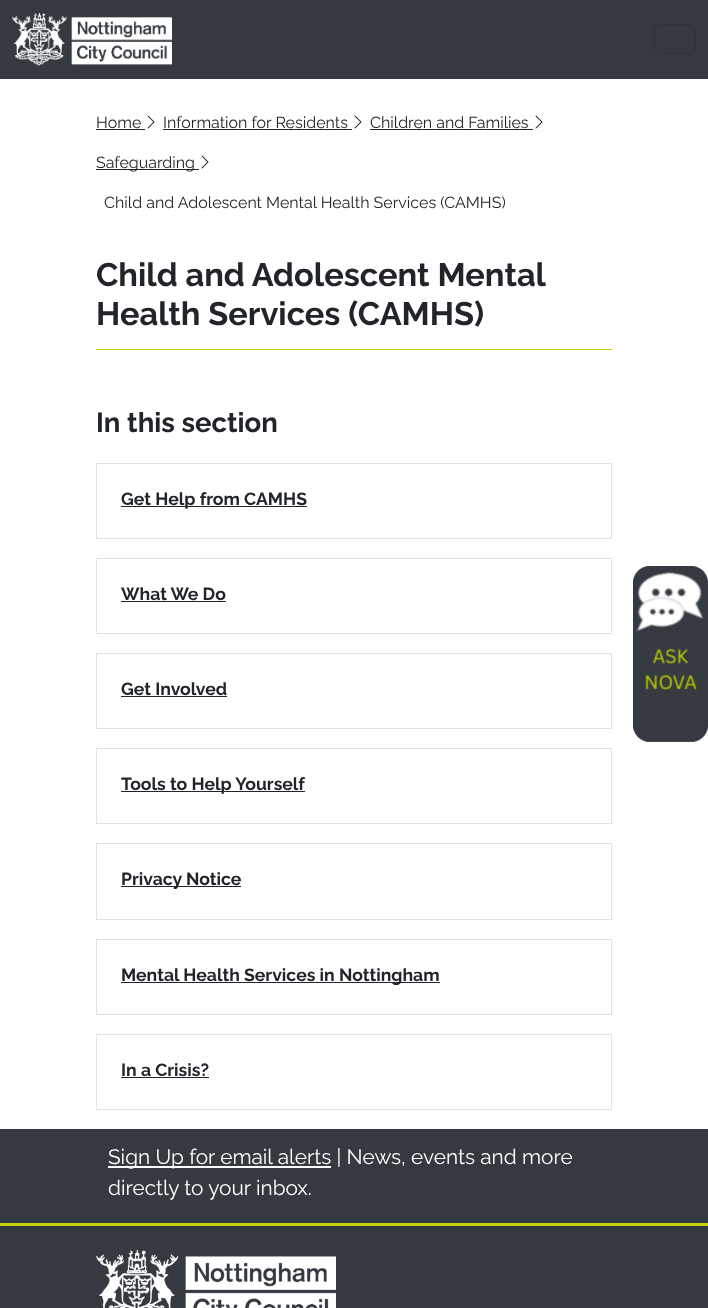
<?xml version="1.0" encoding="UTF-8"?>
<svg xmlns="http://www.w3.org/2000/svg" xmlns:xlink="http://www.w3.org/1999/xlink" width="708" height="1308">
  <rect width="100%" height="100%" fill="#ffffff" />
  <rect width="708" height="79" fill="#343a40" />
  <image x="12" y="13" width="160" height="53" xlink:href="image1.png" />
  <rect x="654.5" y="24.5" width="41" height="29" rx="5.5" fill="none" stroke="#2f343a" />
  <rect x="96" y="129" width="49" height="1" fill="#212529" />
  <image x="147" y="115" width="8" height="14" xlink:href="image2.png" />
  <rect x="163" y="129" width="189" height="1" fill="#212529" />
  <image x="354" y="115" width="8" height="14" xlink:href="image2.png" />
  <rect x="370" y="129" width="163" height="1" fill="#212529" />
  <image x="535" y="115" width="8" height="14" xlink:href="image2.png" />
  <rect x="96" y="169" width="103" height="1" fill="#212529" />
  <image x="201" y="155" width="8" height="14" xlink:href="image2.png" />
  <rect x="96" y="349" width="516" height="1" fill="#c7d301" />
  <rect x="96.5" y="463.5" width="515" height="75" fill="none" stroke="#dee2e6" />
  <rect x="121" y="506" width="186" height="1" fill="#212529" />
  <rect x="96.5" y="558.5" width="515" height="75" fill="none" stroke="#dee2e6" />
  <rect x="121" y="601" width="105" height="1" fill="#212529" />
  <rect x="96.5" y="653.5" width="515" height="75" fill="none" stroke="#dee2e6" />
  <rect x="121" y="696" width="106" height="1" fill="#212529" />
  <rect x="96.5" y="748.5" width="515" height="75" fill="none" stroke="#dee2e6" />
  <rect x="121" y="791" width="184" height="1" fill="#212529" />
  <rect x="96.5" y="843.5" width="515" height="76" fill="none" stroke="#dee2e6" />
  <rect x="121" y="886" width="120" height="1" fill="#212529" />
  <rect x="96.5" y="939.5" width="515" height="75" fill="none" stroke="#dee2e6" />
  <rect x="121" y="982" width="319" height="1" fill="#212529" />
  <rect x="96.5" y="1034.5" width="515" height="75" fill="none" stroke="#dee2e6" />
  <rect x="121" y="1077" width="88" height="1" fill="#212529" />
  <image x="633" y="566" width="75" height="176" xlink:href="image3.png" />
  <rect y="1129" width="708" height="94" fill="#343a40" />
  <rect y="1223" width="708" height="3" fill="#c7d301" />
  <rect x="108" y="1166" width="223" height="2" fill="#ffffff" />
  <rect y="1226" width="708" height="82" fill="#343a40" />
  <image x="96" y="1250" width="240" height="58" xlink:href="image4.png" />
  <text x="96" y="128" style="font-family: Raleway; font-size: 16px; fill: #212529">Home</text>
  <text x="163" y="128" style="font-family: Raleway; font-size: 16px; fill: #212529">Information for Residents</text>
  <text x="370" y="128" style="font-family: Raleway; font-size: 16px; fill: #212529">Children and Families</text>
  <text x="96" y="168" style="font-family: Raleway; font-size: 16px; fill: #212529">Safeguarding</text>
  <text x="104" y="208" style="font-family: Raleway; font-size: 16px; fill: #212529">Child and Adolescent Mental Health Services (CAMHS)</text>
  <text x="96" y="286" style="font-family: Raleway; font-size: 32.6px; font-weight: bold; fill: #212529">Child and Adolescent Mental</text>
  <text x="96" y="325" style="font-family: Raleway; font-size: 32.6px; font-weight: bold; fill: #212529">Health Services (CAMHS)</text>
  <text x="96" y="432" style="font-family: Raleway; font-size: 27.5px; font-weight: bold; fill: #212529">In this section</text>
  <text x="121" y="505" style="font-family: Raleway; font-size: 17.6px; font-weight: bold; fill: #212529">Get Help from CAMHS</text>
  <text x="121" y="600" style="font-family: Raleway; font-size: 17.6px; font-weight: bold; fill: #212529">What We Do</text>
  <text x="121" y="695" style="font-family: Raleway; font-size: 17.6px; font-weight: bold; fill: #212529">Get Involved</text>
  <text x="121" y="790" style="font-family: Raleway; font-size: 17.6px; font-weight: bold; fill: #212529">Tools to Help Yourself</text>
  <text x="121" y="885" style="font-family: Raleway; font-size: 17.6px; font-weight: bold; fill: #212529">Privacy Notice</text>
  <text x="121" y="981" style="font-family: Raleway; font-size: 17.6px; font-weight: bold; fill: #212529">Mental Health Services in Nottingham</text>
  <text x="121" y="1076" style="font-family: Raleway; font-size: 17.6px; font-weight: bold; fill: #212529">In a Crisis?</text>
  <text x="108" y="1164" style="font-family: Raleway; font-size: 20.8px; fill: #ffffff">Sign Up for email alerts | News, events and more</text>
  <text x="108" y="1195" style="font-family: Raleway; font-size: 20.8px; fill: #ffffff">directly to your inbox.</text>
</svg>
